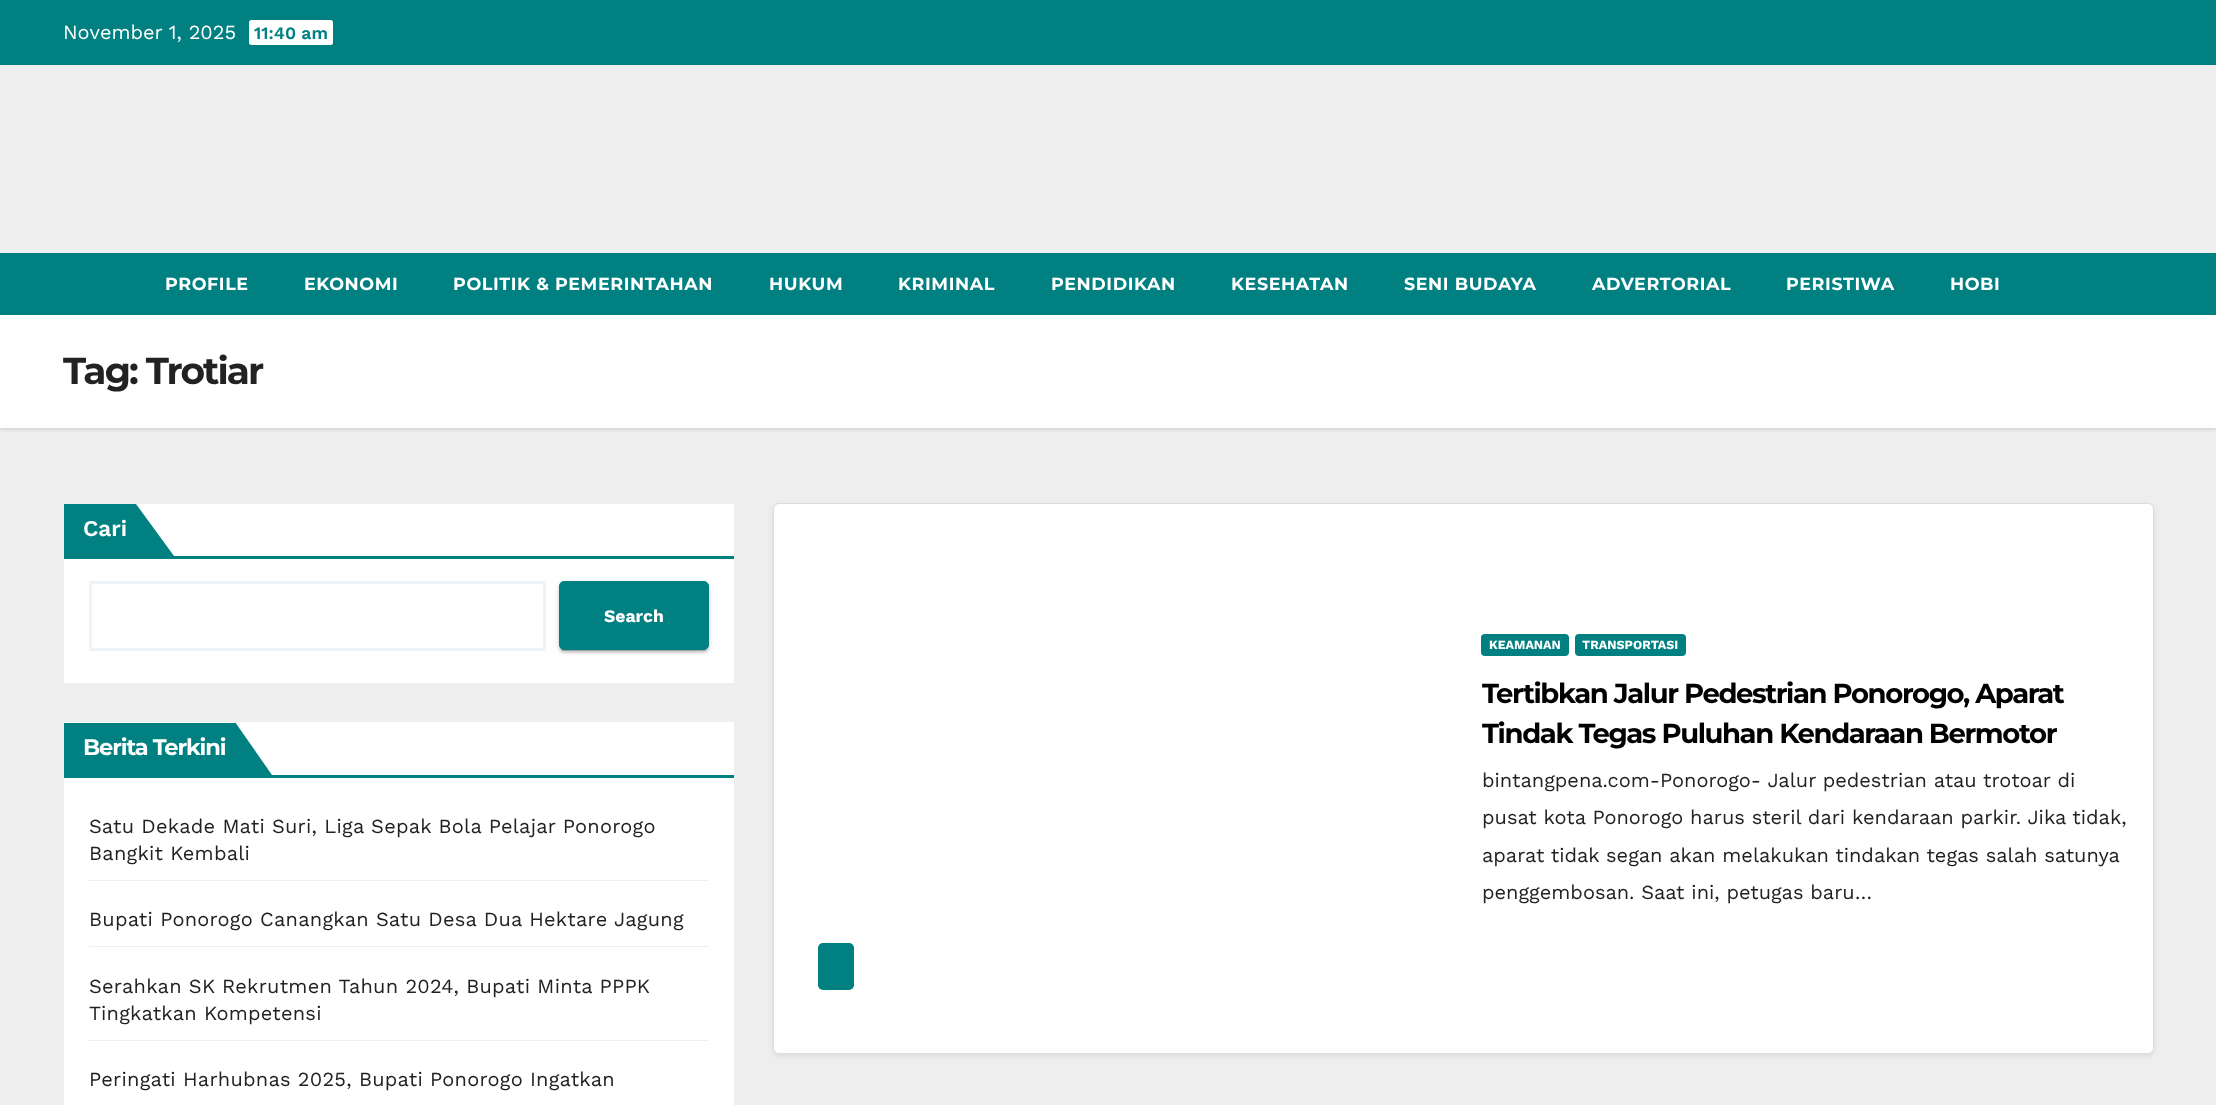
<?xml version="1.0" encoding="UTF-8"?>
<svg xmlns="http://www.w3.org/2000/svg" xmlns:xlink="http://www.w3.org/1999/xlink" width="2216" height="1105">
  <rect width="100%" height="100%" fill="#eeeeee" />
  <rect width="2216" height="65" fill="#008080" />
  <rect x="249" y="20" width="84" height="25" rx="2.5" fill="#ffffff" />
  <rect y="316" width="2216" height="113" fill="#000000" fill-opacity="0.15" filter="blur(2px)" />
  <rect y="253" width="2216" height="62" fill="#008080" />
  <rect y="315" width="2216" height="113" fill="#ffffff" />
  <rect x="64" y="504" width="670" height="179" fill="#ffffff" />
  <rect x="64" y="504" width="72" height="52" fill="#008080" />
  <path d="M 136 556 v -52 l 38 52 z" fill="#008080" />
  <rect x="64" y="556" width="670" height="3" fill="#008080" />
  <rect x="90.5" y="582.5" width="454" height="67" fill="none" stroke="#eef3fb" stroke-width="3" />
  <rect x="559" y="583" width="150" height="68" rx="5" fill="#000000" fill-opacity="0.12" filter="blur(3px)" />
  <rect x="561" y="588" width="145" height="63" rx="2.5" fill="#000000" fill-opacity="0.2" filter="blur(0.5px)" />
  <rect x="559" y="584" width="150" height="69" rx="5" fill="#000000" fill-opacity="0.14" filter="blur(1px)" />
  <rect x="559.5" y="581.5" width="149" height="68" rx="4.5" fill="#008080" stroke="#008080" />
  <rect x="64" y="722" width="670" height="383" fill="#ffffff" />
  <rect x="64" y="723" width="171" height="52" fill="#008080" />
  <path d="M 235 775 v -53 l 37 53 z" fill="#008080" />
  <rect x="64" y="775" width="670" height="3" fill="#008080" />
  <rect x="89" y="880" width="620" height="1" fill="#eeeeee" />
  <rect x="89" y="946" width="620" height="1" fill="#eeeeee" />
  <rect x="89" y="1040" width="620" height="1" fill="#eeeeee" />
  <rect x="773" y="505" width="1381" height="551" rx="6" fill="#000000" fill-opacity="0.08" filter="blur(2.5px)" />
  <rect x="773.5" y="503.5" width="1380" height="550" rx="5.5" fill="#ffffff" stroke="#dddcdc" />
  <rect x="1481" y="634" width="88" height="22" rx="4" fill="#008080" />
  <rect x="1575" y="634" width="111" height="22" rx="4" fill="#008080" />
  <rect x="818" y="943" width="36" height="47" rx="5" fill="#008080" />
  <text x="63" y="39" style="font-family: Work Sans; font-size: 20px; fill: #ffffff">November 1, 2025</text>
  <text x="254" y="39" style="font-family: Work Sans; font-size: 17.5px; font-weight: 600; fill: #008080">11:40 am</text>
  <text x="165" y="290" style="font-family: Montserrat; font-size: 17.5px; font-weight: bold; letter-spacing: 0.6px; fill: #ffffff">PROFILE</text>
  <text x="304" y="290" style="font-family: Montserrat; font-size: 17.5px; font-weight: bold; letter-spacing: 0.6px; fill: #ffffff">EKONOMI</text>
  <text x="453" y="290" style="font-family: Montserrat; font-size: 17.5px; font-weight: bold; letter-spacing: 0.6px; fill: #ffffff">POLITIK &amp; PEMERINTAHAN</text>
  <text x="769" y="290" style="font-family: Montserrat; font-size: 17.5px; font-weight: bold; letter-spacing: 0.6px; fill: #ffffff">HUKUM</text>
  <text x="898" y="290" style="font-family: Montserrat; font-size: 17.5px; font-weight: bold; letter-spacing: 0.6px; fill: #ffffff">KRIMINAL</text>
  <text x="1051" y="290" style="font-family: Montserrat; font-size: 17.5px; font-weight: bold; letter-spacing: 0.6px; fill: #ffffff">PENDIDIKAN</text>
  <text x="1231" y="290" style="font-family: Montserrat; font-size: 17.5px; font-weight: bold; letter-spacing: 0.6px; fill: #ffffff">KESEHATAN</text>
  <text x="1404" y="290" style="font-family: Montserrat; font-size: 17.5px; font-weight: bold; letter-spacing: 0.6px; fill: #ffffff">SENI BUDAYA</text>
  <text x="1592" y="290" style="font-family: Montserrat; font-size: 17.5px; font-weight: bold; letter-spacing: 0.6px; fill: #ffffff">ADVERTORIAL</text>
  <text x="1786" y="290" style="font-family: Montserrat; font-size: 17.5px; font-weight: bold; letter-spacing: 0.6px; fill: #ffffff">PERISTIWA</text>
  <text x="1950" y="290" style="font-family: Montserrat; font-size: 17.5px; font-weight: bold; letter-spacing: 0.6px; fill: #ffffff">HOBI</text>
  <text x="63" y="384" style="font-family: Montserrat; font-size: 37.5px; font-weight: bold; letter-spacing: -1.9px; fill: #222222">Tag: Trotiar</text>
  <text x="83" y="536" style="font-family: Work Sans; font-size: 22.5px; font-weight: 600; fill: #ffffff">Cari</text>
  <text x="604" y="622" style="font-family: Work Sans; font-size: 17.5px; font-weight: bold; fill: #ffffff">Search</text>
  <text x="83" y="755" style="font-family: Montserrat; font-size: 22.5px; font-weight: bold; letter-spacing: -1.1px; fill: #ffffff">Berita Terkini</text>
  <text x="89" y="833" style="font-family: Work Sans; font-size: 20px; letter-spacing: 0.25px; fill: #222222">Satu Dekade Mati Suri, Liga Sepak Bola Pelajar Ponorogo</text>
  <text x="89" y="860" style="font-family: Work Sans; font-size: 20px; letter-spacing: 0.25px; fill: #222222">Bangkit Kembali</text>
  <text x="89" y="926" style="font-family: Work Sans; font-size: 20px; letter-spacing: 0.25px; fill: #222222">Bupati Ponorogo Canangkan Satu Desa Dua Hektare Jagung</text>
  <text x="89" y="993" style="font-family: Work Sans; font-size: 20px; letter-spacing: 0.25px; fill: #222222">Serahkan SK Rekrutmen Tahun 2024, Bupati Minta PPPK</text>
  <text x="89" y="1020" style="font-family: Work Sans; font-size: 20px; letter-spacing: 0.25px; fill: #222222">Tingkatkan Kompetensi</text>
  <text x="89" y="1086" style="font-family: Work Sans; font-size: 20px; letter-spacing: 0.25px; fill: #222222">Peringati Harhubnas 2025, Bupati Ponorogo Ingatkan</text>
  <text x="1489" y="649" style="font-family: Work Sans; font-size: 12.5px; font-weight: bold; fill: #ffffff">KEAMANAN</text>
  <text x="1582" y="649" style="font-family: Work Sans; font-size: 12.5px; font-weight: bold; fill: #ffffff">TRANSPORTASI</text>
  <text x="1482" y="703" style="font-family: Montserrat; font-size: 27.5px; font-weight: bold; letter-spacing: -1.4px; fill: #000000">Tertibkan Jalur Pedestrian Ponorogo, Aparat</text>
  <text x="1482" y="743" style="font-family: Montserrat; font-size: 27.5px; font-weight: bold; letter-spacing: -1.4px; fill: #000000">Tindak Tegas Puluhan Kendaraan Bermotor</text>
  <text x="1482" y="787" style="font-family: Work Sans; font-size: 20px; fill: #222222">bintangpena.com-Ponorogo- Jalur pedestrian atau trotoar di</text>
  <text x="1482" y="824" style="font-family: Work Sans; font-size: 20px; fill: #222222">pusat kota Ponorogo harus steril dari kendaraan parkir. Jika tidak,</text>
  <text x="1482" y="862" style="font-family: Work Sans; font-size: 20px; fill: #222222">aparat tidak segan akan melakukan tindakan tegas salah satunya</text>
  <text x="1482" y="899" style="font-family: Work Sans; font-size: 20px; fill: #222222">penggembosan. Saat ini, petugas baru…</text>
</svg>
